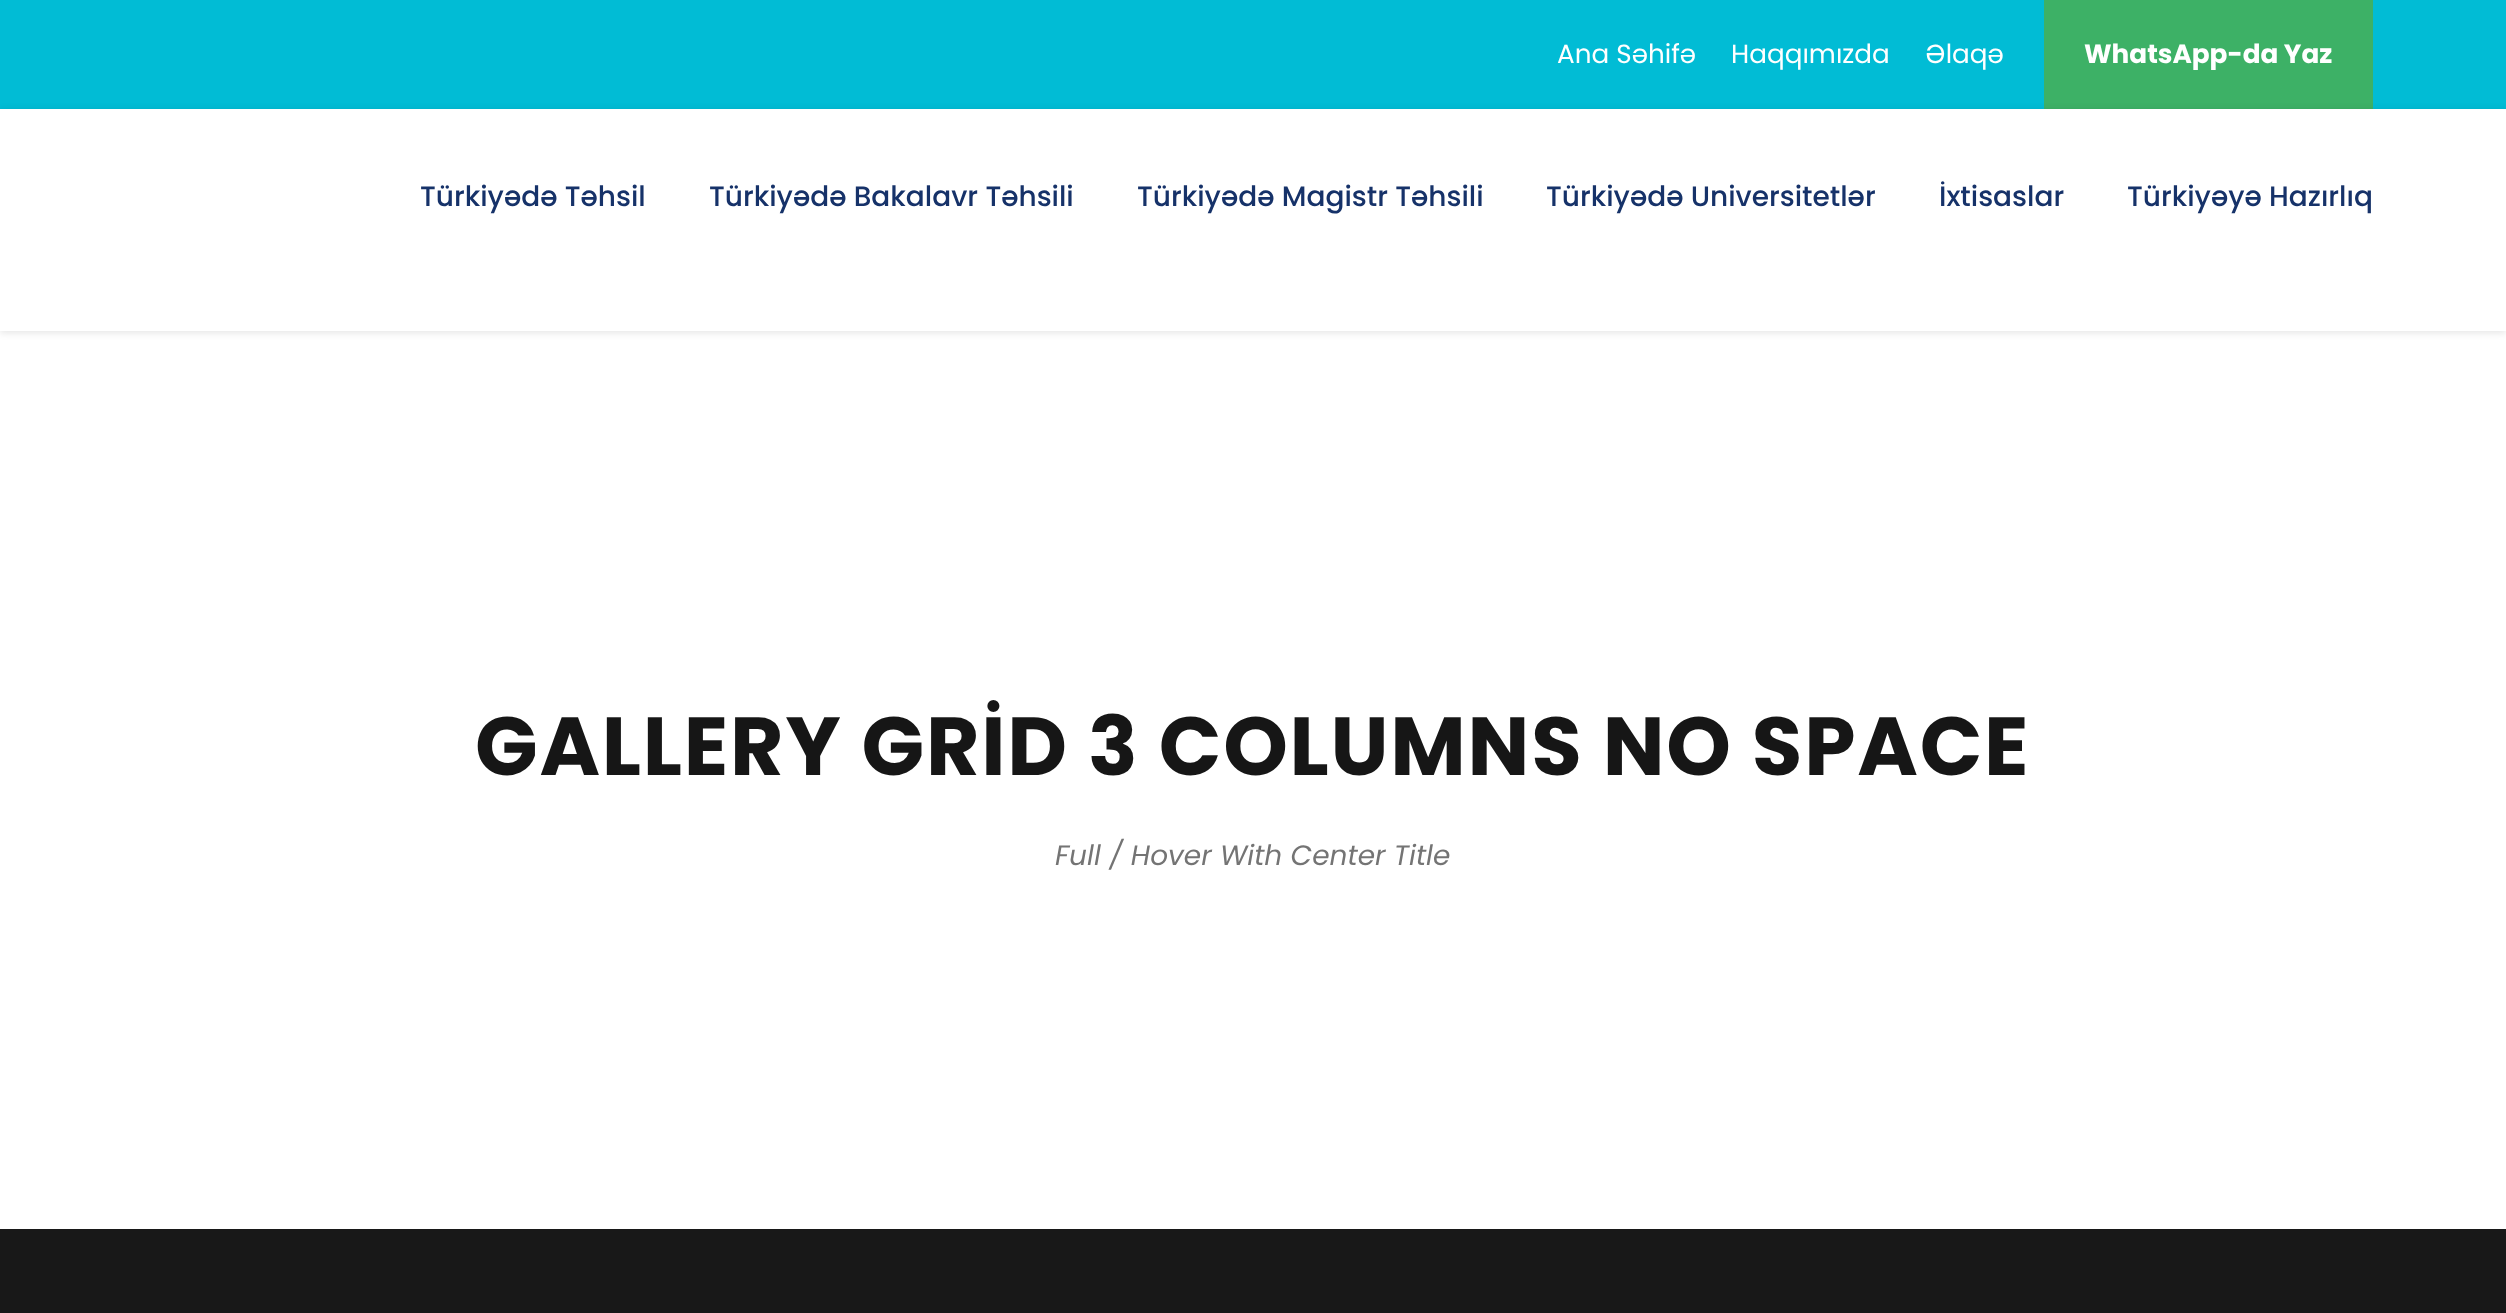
<?xml version="1.0" encoding="UTF-8"?>
<svg xmlns="http://www.w3.org/2000/svg" xmlns:xlink="http://www.w3.org/1999/xlink" width="2506" height="1313">
  <rect width="100%" height="100%" fill="#ffffff" />
  <rect width="2506" height="109" fill="#01bcd5" />
  <rect x="2044" width="329" height="109" fill="#3db166" />
  <rect y="110" width="2506" height="223" fill="#000000" fill-opacity="0.1" filter="blur(3.5px)" />
  <rect y="109" width="2506" height="222" fill="#ffffff" />
  <rect y="1229" width="2506" height="84" fill="#181818" />
  <text x="1557" y="63" style="font-family: Poppins; font-size: 26.25px; fill: #ffffff">Ana Səhifə</text>
  <text x="1731" y="63" style="font-family: Poppins; font-size: 26.25px; fill: #ffffff">Haqqımızda</text>
  <text x="1925" y="63" style="font-family: Poppins; font-size: 26.25px; fill: #ffffff">Əlaqə</text>
  <text x="2084" y="63" style="font-family: Poppins; font-size: 26.25px; font-weight: bold; fill: #ffffff">WhatsApp-da Yaz</text>
  <text x="420" y="206" style="font-family: Poppins; font-size: 28px; font-weight: 500; fill: #163269">Türkiyədə Təhsil</text>
  <text x="709" y="206" style="font-family: Poppins; font-size: 28px; font-weight: 500; fill: #163269">Türkiyədə Bakalavr Təhsili</text>
  <text x="1137" y="206" style="font-family: Poppins; font-size: 28px; font-weight: 500; fill: #163269">Türkiyədə Magistr Təhsili</text>
  <text x="1546" y="206" style="font-family: Poppins; font-size: 28px; font-weight: 500; fill: #163269">Türkiyədə Universitetlər</text>
  <text x="1939" y="206" style="font-family: Poppins; font-size: 28px; font-weight: 500; fill: #163269">İxtisaslar</text>
  <text x="2127" y="206" style="font-family: Poppins; font-size: 28px; font-weight: 500; fill: #163269">Türkiyəyə Hazırlıq</text>
  <text x="475" y="775" style="font-family: Poppins; font-size: 82.25px; font-weight: bold; letter-spacing: 1.75px; fill: #161616">GALLERY GRİD 3 COLUMNS NO SPACE</text>
  <text x="1055" y="865" style="font-family: Poppins; font-size: 28px; font-style: italic; fill: #747474">Full / Hover With Center Title</text>
</svg>
